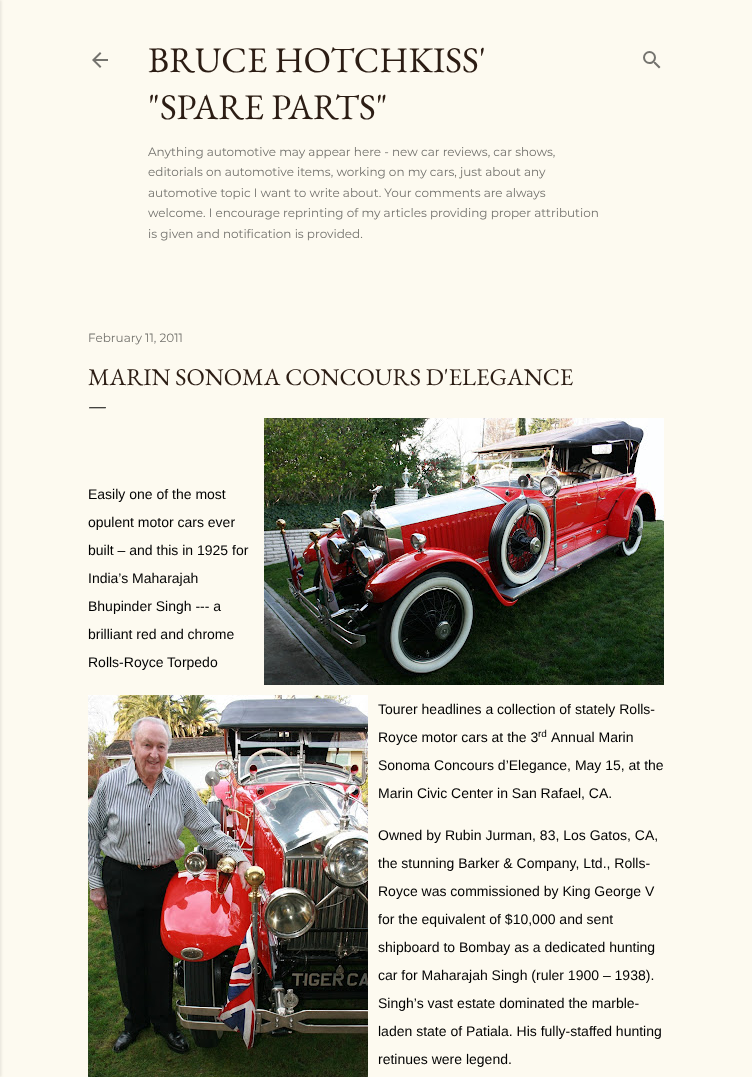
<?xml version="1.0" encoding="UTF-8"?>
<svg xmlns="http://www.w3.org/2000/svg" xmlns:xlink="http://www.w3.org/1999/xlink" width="752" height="1077">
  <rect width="100%" height="100%" fill="#fdfaf0" />
  <rect x="-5" width="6" height="1077" fill="#000000" fill-opacity="0.1" filter="blur(1.5px)" />
  <image x="92" y="52" width="16" height="16" xlink:href="image1.png" />
  <image x="643" y="51" width="18" height="18" xlink:href="image2.png" />
  <image x="264" y="418" width="400" height="267" xlink:href="image3.png" />
  <image x="88" y="695" width="280" height="382" xlink:href="image4.png" />
  <text x="148" y="72" style="font-family: EB Garamond; font-size: 36px; fill: #2c1d14">BRUCE HOTCHKISS'</text>
  <text x="148" y="119" style="font-family: EB Garamond; font-size: 36px; fill: #2c1d14">"SPARE PARTS"</text>
  <text x="148" y="156" style="font-family: Montserrat; font-size: 12px; fill: #74736e">Anything automotive may appear here - new car reviews, car shows,</text>
  <text x="148" y="176" style="font-family: Montserrat; font-size: 12px; fill: #74736e">editorials on automotive items, working on my cars, just about any</text>
  <text x="148" y="197" style="font-family: Montserrat; font-size: 12px; fill: #74736e">automotive topic I want to write about. Your comments are always</text>
  <text x="148" y="217" style="font-family: Montserrat; font-size: 12px; fill: #74736e">welcome. I encourage reprinting of my articles providing proper attribution</text>
  <text x="148" y="238" style="font-family: Montserrat; font-size: 12px; fill: #74736e">is given and notification is provided.</text>
  <text x="88" y="342" style="font-family: Montserrat; font-size: 12px; fill: #74736e">February 11, 2011</text>
  <text x="88" y="385" style="font-family: EB Garamond; font-size: 24px; fill: #2c1d14">MARIN SONOMA CONCOURS D'ELEGANCE</text>
  <text x="88" y="412" style="font-family: EB Garamond; font-size: 20px; fill: #000000">—</text>
  <text x="88" y="499" style="font-family: Liberation Sans; font-size: 14px; fill: #000000">Easily one of the most</text>
  <text x="88" y="527" style="font-family: Liberation Sans; font-size: 14px; fill: #000000">opulent motor cars ever</text>
  <text x="88" y="555" style="font-family: Liberation Sans; font-size: 14px; fill: #000000">built – and this in 1925 for</text>
  <text x="88" y="583" style="font-family: Liberation Sans; font-size: 14px; fill: #000000">India’s Maharajah</text>
  <text x="88" y="611" style="font-family: Liberation Sans; font-size: 14px; fill: #000000">Bhupinder Singh --- a</text>
  <text x="88" y="639" style="font-family: Liberation Sans; font-size: 14px; fill: #000000">brilliant red and chrome</text>
  <text x="88" y="667" style="font-family: Liberation Sans; font-size: 14px; fill: #000000">Rolls-Royce Torpedo</text>
  <text x="378" y="714" style="font-family: Liberation Sans; font-size: 14px; fill: #000000">Tourer headlines a collection of stately Rolls-</text>
  <text x="378" y="742" style="font-family: Liberation Sans; font-size: 14px; fill: #000000">Royce motor cars at the 3</text>
  <text x="538" y="737" style="font-family: Liberation Sans; font-size: 10px; fill: #000000">rd</text>
  <text x="551" y="742" style="font-family: Liberation Sans; font-size: 14px; fill: #000000">Annual Marin</text>
  <text x="378" y="770" style="font-family: Liberation Sans; font-size: 14px; fill: #000000">Sonoma Concours d’Elegance, May 15, at the</text>
  <text x="378" y="798" style="font-family: Liberation Sans; font-size: 14px; fill: #000000">Marin Civic Center in San Rafael, CA.</text>
  <text x="378" y="840" style="font-family: Liberation Sans; font-size: 14px; fill: #000000">Owned by Rubin Jurman, 83, Los Gatos, CA,</text>
  <text x="378" y="868" style="font-family: Liberation Sans; font-size: 14px; fill: #000000">the stunning Barker &amp; Company, Ltd., Rolls-</text>
  <text x="378" y="896" style="font-family: Liberation Sans; font-size: 14px; fill: #000000">Royce was commissioned by King George V</text>
  <text x="378" y="924" style="font-family: Liberation Sans; font-size: 14px; fill: #000000">for the equivalent of $10,000 and sent</text>
  <text x="378" y="952" style="font-family: Liberation Sans; font-size: 14px; fill: #000000">shipboard to Bombay as a dedicated hunting</text>
  <text x="378" y="980" style="font-family: Liberation Sans; font-size: 14px; fill: #000000">car for Maharajah Singh (ruler 1900 – 1938).</text>
  <text x="378" y="1008" style="font-family: Liberation Sans; font-size: 14px; fill: #000000">Singh’s vast estate dominated the marble-</text>
  <text x="378" y="1036" style="font-family: Liberation Sans; font-size: 14px; fill: #000000">laden state of Patiala. His fully-staffed hunting</text>
  <text x="378" y="1064" style="font-family: Liberation Sans; font-size: 14px; fill: #000000">retinues were legend.</text>
</svg>
